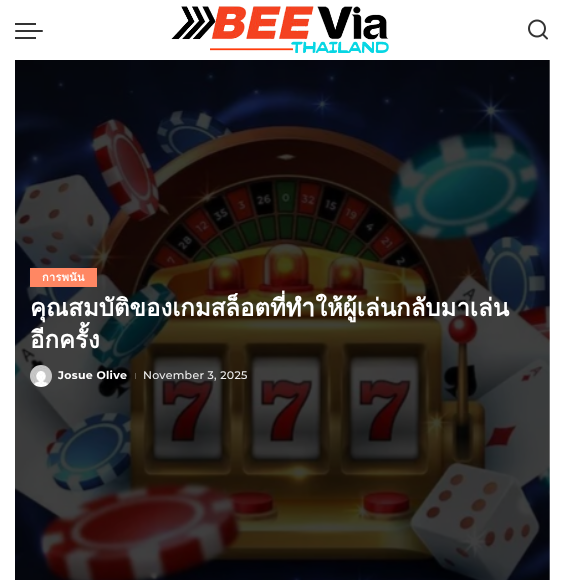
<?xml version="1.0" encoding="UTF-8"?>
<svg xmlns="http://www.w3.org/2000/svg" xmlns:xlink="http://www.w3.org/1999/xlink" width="565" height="580">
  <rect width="100%" height="100%" fill="#ffffff" />
  <rect x="15" y="30" width="28" height="2" rx="1" fill="#333333" />
  <rect x="15" y="23" width="21" height="2" fill="#333333" />
  <rect x="15" y="37" width="21" height="2" fill="#333333" />
  <image x="171" y="6" width="218" height="47" xlink:href="image1.png" />
  <image x="528" y="19" width="20" height="21" xlink:href="image2.png" />
  <image x="15" y="60" width="535" height="520" xlink:href="image3.png" />
  <rect x="30" y="268" width="67" height="19" fill="#ff8763" />
  <image x="30" y="365" width="22" height="22" xlink:href="image4.png" />
  <rect x="135" y="373" width="1" height="6" fill="#635a4e" />
  <text x="42" y="281" style="font-family: Loma; font-size: 11px; font-weight: bold; letter-spacing: 0.3px; fill: #ffffff">การพนัน</text>
  <text x="30" y="316" style="font-family: Loma; font-size: 24px; font-weight: bold; fill: #ffffff">คุณสมบัติของเกมสล็อตที่ทำให้ผู้เล่นกลับมาเล่น</text>
  <text x="30" y="348" style="font-family: Loma; font-size: 24px; font-weight: bold; fill: #ffffff">อีกครั้ง</text>
  <text x="58" y="379" style="font-family: Montserrat; font-size: 11px; font-weight: bold; letter-spacing: 0.3px; fill: #ffffff">Josue Olive</text>
  <text x="143" y="379" style="font-family: Montserrat; font-size: 11px; font-weight: 500; letter-spacing: 0.3px; fill: #efefef">November 3, 2025</text>
</svg>
